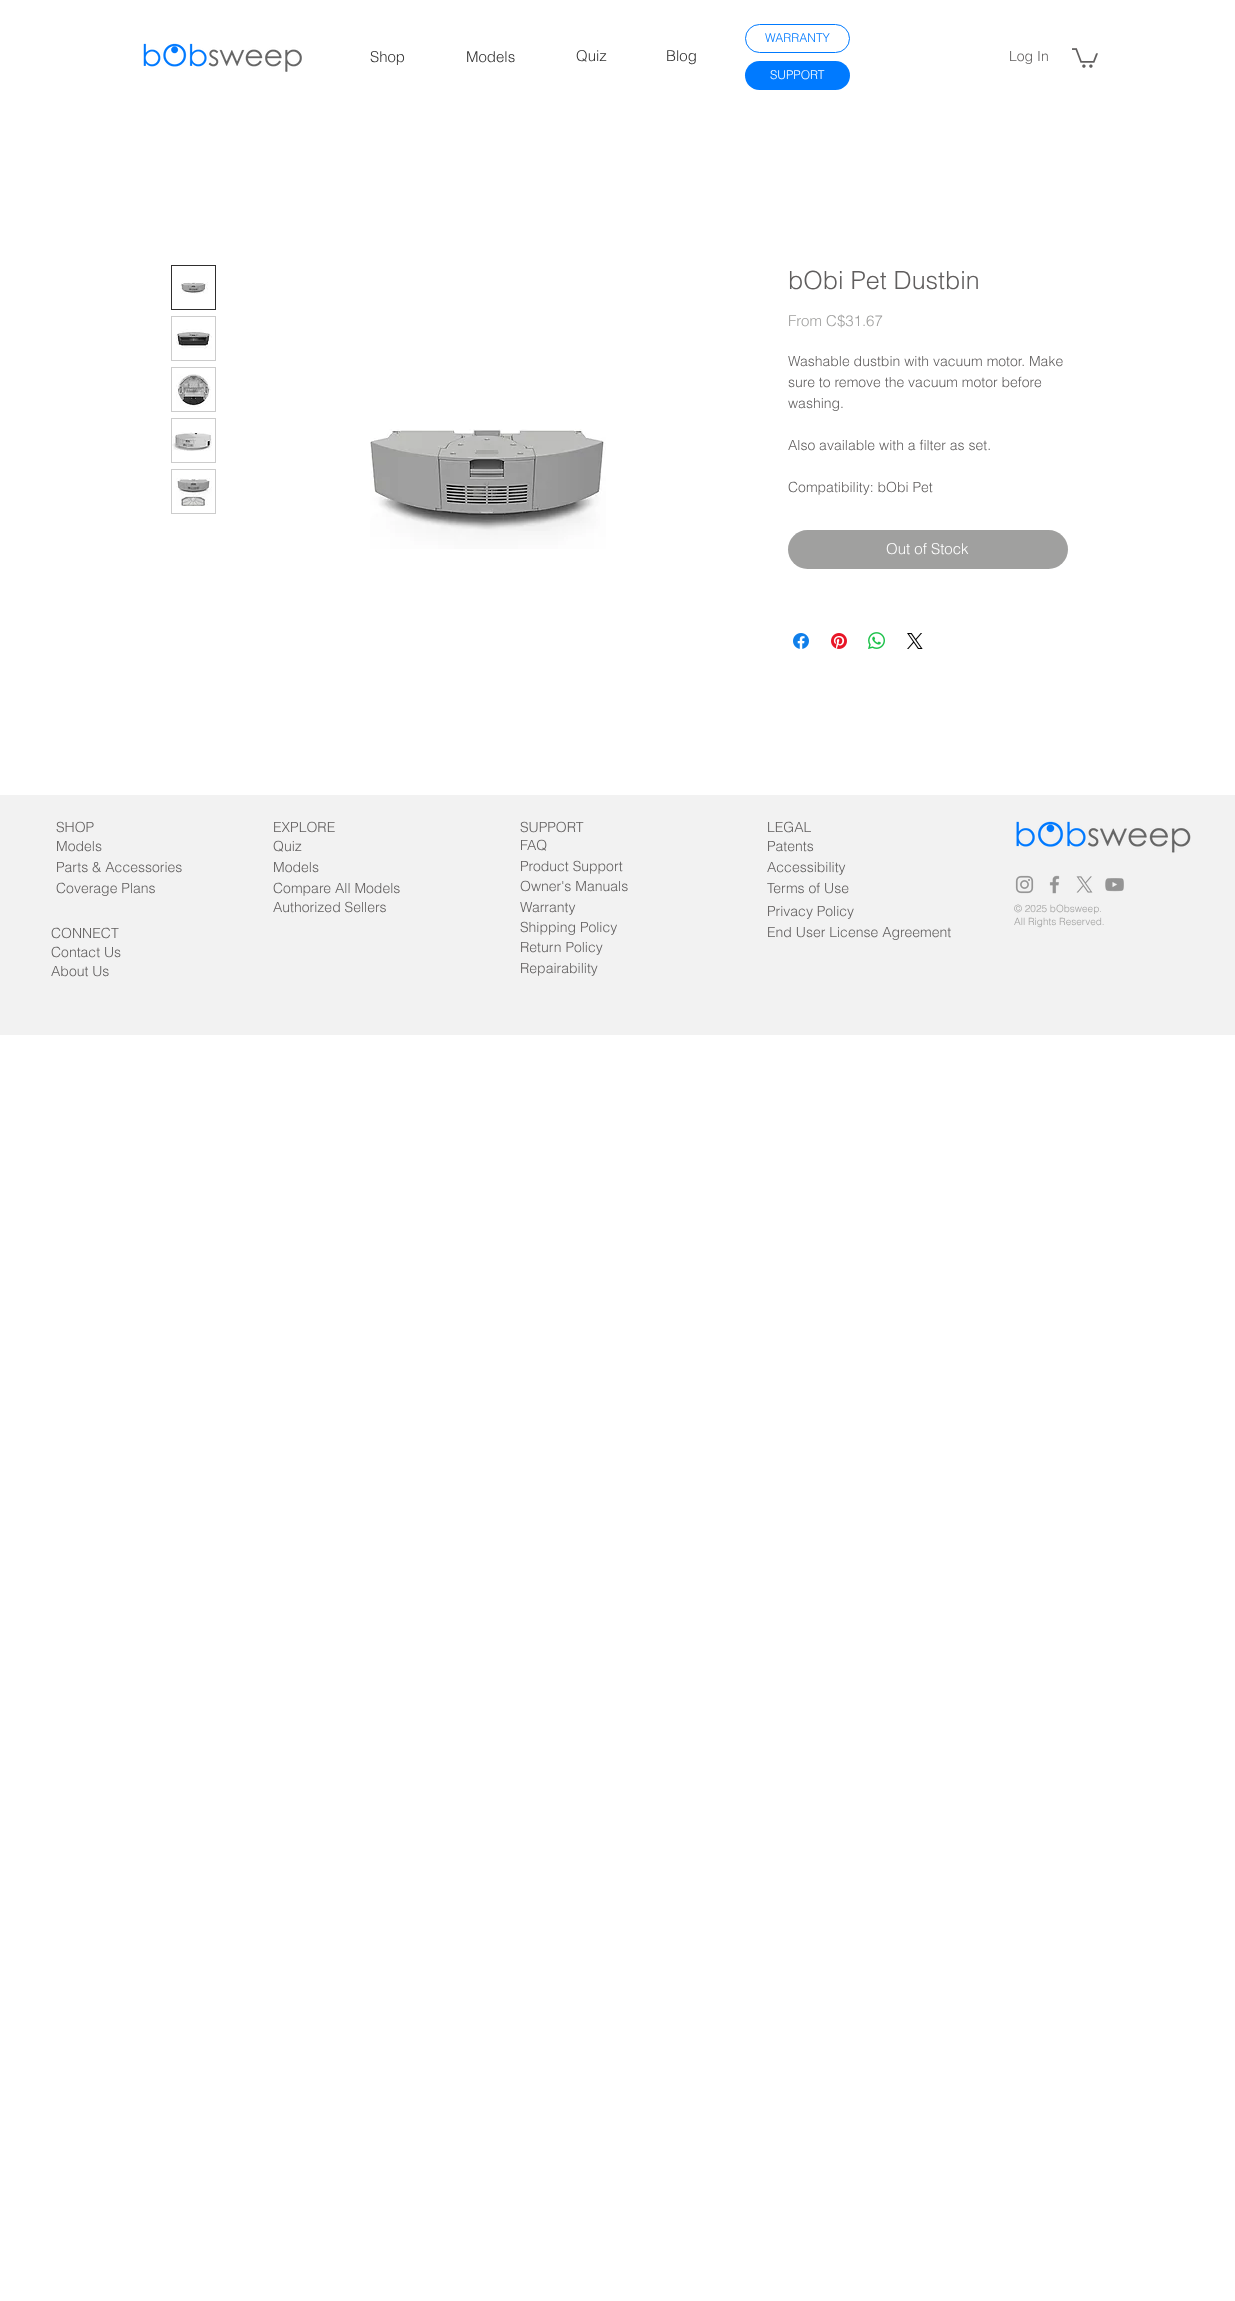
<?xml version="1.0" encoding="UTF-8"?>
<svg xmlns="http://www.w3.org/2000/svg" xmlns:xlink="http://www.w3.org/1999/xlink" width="1235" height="2301">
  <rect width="100%" height="100%" fill="#ffffff" />
  <rect x="745.5" y="24.5" width="104" height="28" rx="14" fill="none" stroke="#007aff" />
  <image x="143" y="43" width="159" height="29" xlink:href="image1.png" />
  <rect x="745" y="61" width="105" height="29" rx="14.5" fill="#007aff" />
  <image x="1072" y="48" width="26" height="20" xlink:href="image2.png" />
  <rect x="171.5" y="265.5" width="44" height="44" fill="none" stroke="#2f2e2e" />
  <image x="180" y="282" width="28" height="12" xlink:href="image3.png" />
  <rect x="171.5" y="316.5" width="44" height="44" fill="none" stroke="#cccccc" />
  <image x="176" y="329" width="36" height="20" xlink:href="image4.png" />
  <rect x="171.5" y="367.5" width="44" height="44" fill="none" stroke="#cccccc" />
  <image x="176" y="374" width="35" height="34" xlink:href="image5.png" />
  <rect x="171.5" y="418.5" width="44" height="44" fill="none" stroke="#cccccc" />
  <image x="172" y="432" width="40" height="19" xlink:href="image6.png" />
  <rect x="171.5" y="469.5" width="44" height="44" fill="none" stroke="#cccccc" />
  <image x="176" y="478" width="36" height="28" xlink:href="image7.png" />
  <image x="370" y="429" width="236" height="120" xlink:href="image8.png" />
  <rect x="788" y="530" width="280" height="39" rx="19.5" fill="#a0a09f" />
  <image x="793" y="633" width="16" height="16" xlink:href="image9.png" />
  <image x="831" y="633" width="16" height="16" xlink:href="image10.png" />
  <image x="868" y="632" width="17" height="17" xlink:href="image11.png" />
  <image x="907" y="633" width="16" height="16" xlink:href="image12.png" />
  <rect y="795" width="1235" height="240" fill="#f2f2f2" />
  <image x="1016" y="821" width="175" height="32" xlink:href="image13.png" />
  <image x="1015" y="875" width="19" height="19" xlink:href="image14.png" />
  <image x="1049" y="875" width="11" height="19" xlink:href="image15.png" />
  <image x="1076" y="876" width="17" height="17" xlink:href="image16.png" />
  <image x="1105" y="878" width="19" height="14" xlink:href="image17.png" />
  <text x="765" y="42" style="font-family: helvetica; font-size: 12px; font-weight: 300; fill: #007aff">WARRANTY</text>
  <text x="370" y="62" style="font-family: helvetica; font-size: 15px; font-weight: 300; fill: #323232">Shop</text>
  <text x="466" y="62" style="font-family: helvetica; font-size: 15px; font-weight: 300; fill: #323232">Models</text>
  <text x="576" y="61" style="font-family: helvetica; font-size: 15px; font-weight: 300; fill: #323232">Quiz</text>
  <text x="666" y="61" style="font-family: helvetica; font-size: 15px; font-weight: 300; fill: #323232">Blog</text>
  <text x="770" y="79" style="font-family: helvetica; font-size: 12px; font-weight: 300; fill: #ffffff">SUPPORT</text>
  <text x="1009" y="61" style="font-family: helvetica; font-size: 14px; font-weight: 300; fill: #605e5e">Log In</text>
  <text x="788" y="289" style="font-family: helvetica; font-size: 25px; font-weight: 300; fill: #605e5e">bObi Pet Dustbin</text>
  <text x="788" y="326" style="font-family: helvetica; font-size: 15px; font-weight: 300; fill: #a0a09f">From C$31.67</text>
  <text x="788" y="366" style="font-family: helvetica; font-size: 14px; font-weight: 300; fill: #605e5e">Washable dustbin with vacuum motor. Make</text>
  <text x="788" y="387" style="font-family: helvetica; font-size: 14px; font-weight: 300; fill: #605e5e">sure to remove the vacuum motor before</text>
  <text x="788" y="408" style="font-family: helvetica; font-size: 14px; font-weight: 300; fill: #605e5e">washing.</text>
  <text x="788" y="450" style="font-family: helvetica; font-size: 14px; font-weight: 300; fill: #605e5e">Also available with a filter as set.</text>
  <text x="788" y="492" style="font-family: helvetica; font-size: 14px; font-weight: 300; fill: #605e5e">Compatibility: bObi Pet</text>
  <text x="886" y="554" style="font-family: helvetica; font-size: 15px; font-weight: 300; fill: #ffffff">Out of Stock</text>
  <text x="56" y="832" style="font-family: helvetica; font-size: 14px; font-weight: 300; fill: #605e5e">SHOP</text>
  <text x="56" y="851" style="font-family: helvetica; font-size: 14px; font-weight: 300; fill: #605e5e">Models</text>
  <text x="56" y="872" style="font-family: helvetica; font-size: 14px; font-weight: 300; fill: #605e5e">Parts &amp; Accessories</text>
  <text x="56" y="893" style="font-family: helvetica; font-size: 14px; font-weight: 300; fill: #605e5e">Coverage Plans</text>
  <text x="51" y="938" style="font-family: helvetica; font-size: 14px; font-weight: 300; fill: #605e5e">CONNECT</text>
  <text x="51" y="957" style="font-family: helvetica; font-size: 14px; font-weight: 300; fill: #605e5e">Contact Us</text>
  <text x="51" y="976" style="font-family: helvetica; font-size: 14px; font-weight: 300; fill: #605e5e">About Us</text>
  <text x="273" y="832" style="font-family: helvetica; font-size: 14px; font-weight: 300; fill: #605e5e">EXPLORE</text>
  <text x="273" y="851" style="font-family: helvetica; font-size: 14px; font-weight: 300; fill: #605e5e">Quiz</text>
  <text x="273" y="872" style="font-family: helvetica; font-size: 14px; font-weight: 300; fill: #605e5e">Models</text>
  <text x="273" y="893" style="font-family: helvetica; font-size: 14px; font-weight: 300; fill: #605e5e">Compare All Models</text>
  <text x="273" y="912" style="font-family: helvetica; font-size: 14px; font-weight: 300; fill: #605e5e">Authorized Sellers</text>
  <text x="520" y="832" style="font-family: helvetica; font-size: 14px; font-weight: 300; fill: #605e5e">SUPPORT</text>
  <text x="520" y="850" style="font-family: helvetica; font-size: 14px; font-weight: 300; fill: #605e5e">FAQ</text>
  <text x="520" y="871" style="font-family: helvetica; font-size: 14px; font-weight: 300; fill: #605e5e">Product Support</text>
  <text x="520" y="891" style="font-family: helvetica; font-size: 14px; font-weight: 300; fill: #605e5e">Owner's Manuals</text>
  <text x="520" y="912" style="font-family: helvetica; font-size: 14px; font-weight: 300; fill: #605e5e">Warranty</text>
  <text x="520" y="932" style="font-family: helvetica; font-size: 14px; font-weight: 300; fill: #605e5e">Shipping Policy</text>
  <text x="520" y="952" style="font-family: helvetica; font-size: 14px; font-weight: 300; fill: #605e5e">Return Policy</text>
  <text x="520" y="973" style="font-family: helvetica; font-size: 14px; font-weight: 300; fill: #605e5e">Repairability</text>
  <text x="767" y="832" style="font-family: helvetica; font-size: 14px; font-weight: 300; fill: #605e5e">LEGAL</text>
  <text x="767" y="851" style="font-family: helvetica; font-size: 14px; font-weight: 300; fill: #605e5e">Patents</text>
  <text x="767" y="872" style="font-family: helvetica; font-size: 14px; font-weight: 300; fill: #605e5e">Accessibility</text>
  <text x="767" y="893" style="font-family: helvetica; font-size: 14px; font-weight: 300; fill: #605e5e">Terms of Use</text>
  <text x="767" y="916" style="font-family: helvetica; font-size: 14px; font-weight: 300; fill: #605e5e">Privacy Policy</text>
  <text x="767" y="937" style="font-family: helvetica; font-size: 14px; font-weight: 300; fill: #605e5e">End User License Agreement</text>
  <text x="1014" y="912" style="font-family: helvetica; font-size: 10px; font-weight: 300; fill: #a0a09f">© 2025 bObsweep.</text>
  <text x="1014" y="925" style="font-family: helvetica; font-size: 10px; font-weight: 300; fill: #a0a09f">All Rights Reserved.</text>
</svg>
